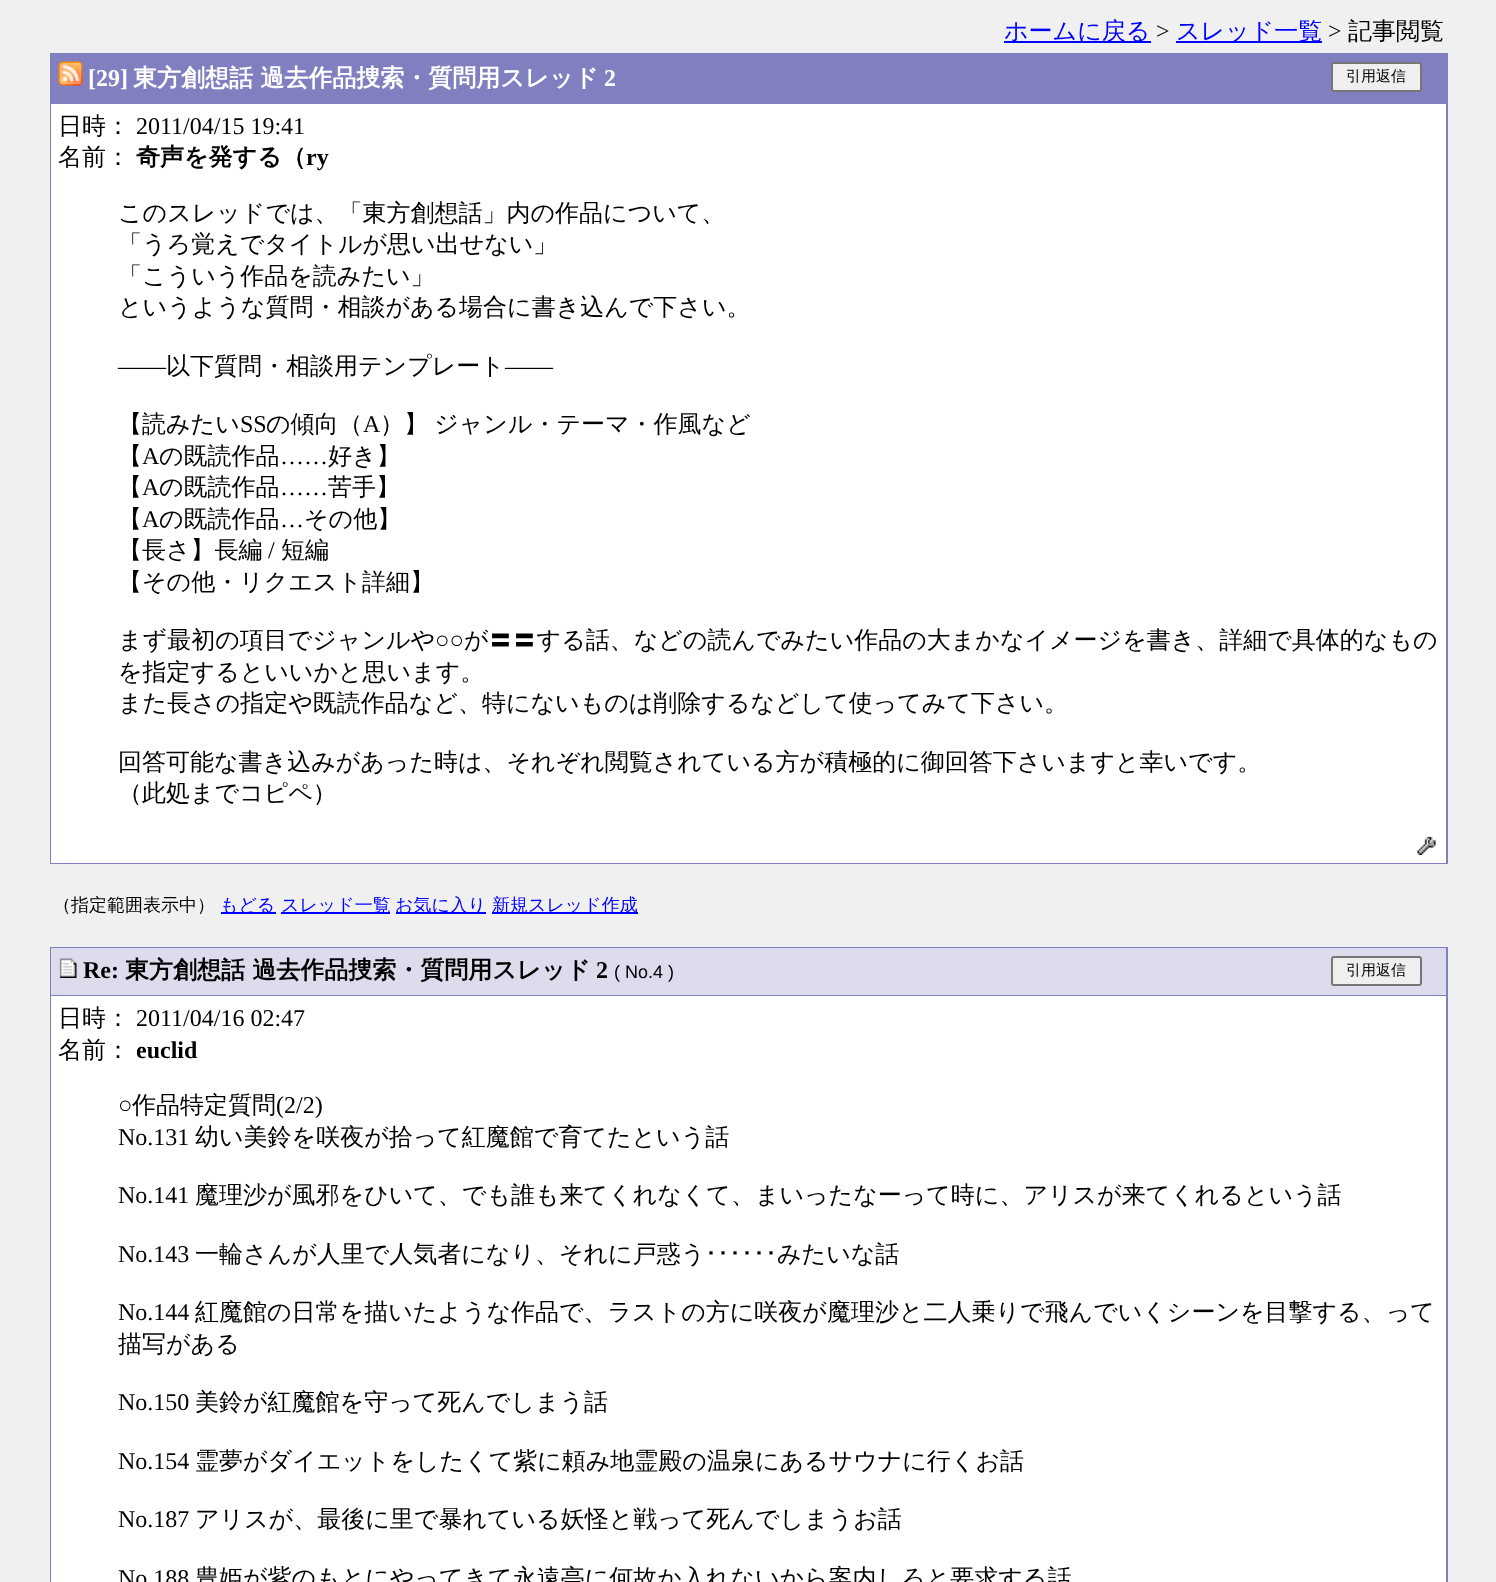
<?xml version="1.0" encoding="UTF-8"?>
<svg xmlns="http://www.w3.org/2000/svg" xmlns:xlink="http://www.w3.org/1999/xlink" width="1496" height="1582">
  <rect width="100%" height="100%" fill="#f0f0f0" />
  <rect x="1004" y="41" width="147" height="2" fill="#0000ff" />
  <rect x="1176" y="41" width="146" height="2" fill="#0000ff" />
  <rect x="50" y="53" width="1398" height="811" fill="#8080c0" />
  <image x="58" y="61" width="25" height="25" xlink:href="image1.png" />
  <rect x="1332" y="63" width="89" height="28" rx="2" fill="#efefef" stroke="#767676" stroke-width="2" />
  <rect x="51" y="104" width="1395" height="759" fill="#ffffff" />
  <image x="1417" y="836" width="19" height="19" xlink:href="image2.png" />
  <rect x="221" y="912" width="55" height="2" fill="#0000ff" />
  <rect x="281" y="912" width="109" height="2" fill="#0000ff" />
  <rect x="396" y="912" width="90" height="2" fill="#0000ff" />
  <rect x="492" y="912" width="146" height="2" fill="#0000ff" />
  <rect x="50" y="947" width="1398" height="635" fill="#8080c0" />
  <rect x="51" y="948" width="1395" height="47" fill="#dcdced" />
  <image x="59" y="958" width="18" height="20" xlink:href="image3.png" />
  <rect x="1332" y="957" width="89" height="28" rx="2" fill="#efefef" stroke="#767676" stroke-width="2" />
  <rect x="51" y="996" width="1395" height="586" fill="#ffffff" />
  <text x="1004" y="39" style="font-family: WenQuanYi Zen Hei; font-size: 24px; font-weight: 500; fill: #0000ff">ホームに戻る</text>
  <text x="1156" y="39" style="font-family: Liberation Serif; font-size: 24px; fill: #000000">&gt;</text>
  <text x="1176" y="39" style="font-family: WenQuanYi Zen Hei; font-size: 24px; font-weight: 500; fill: #0000ff">スレッド一覧</text>
  <text x="1328" y="39" style="font-family: Liberation Serif; font-size: 24px; fill: #000000">&gt;</text>
  <text x="1348" y="39" style="font-family: WenQuanYi Zen Hei; font-size: 24px; font-weight: 500; fill: #000000">記事閲覧</text>
  <text x="88" y="86" style="font-family: Liberation Serif; font-size: 24px; font-weight: bold; fill: #ffffff">[29]</text>
  <text x="133" y="86" style="font-family: WenQuanYi Zen Hei; font-size: 24px; font-weight: bold; fill: #ffffff">東方創想話 過去作品捜索・質問用スレッド</text>
  <text x="604" y="86" style="font-family: Liberation Serif; font-size: 24px; font-weight: bold; fill: #ffffff">2</text>
  <text x="1346" y="81" style="font-family: WenQuanYi Zen Hei; font-size: 15px; font-weight: 500; fill: #000000">引用返信</text>
  <text x="58" y="134" style="font-family: WenQuanYi Zen Hei; font-size: 24px; font-weight: 500; fill: #000000">日時：</text>
  <text x="136" y="134" style="font-family: Liberation Serif; font-size: 24px; fill: #000000">2011/04/15 19:41</text>
  <text x="58" y="165" style="font-family: WenQuanYi Zen Hei; font-size: 24px; font-weight: 500; fill: #000000">名前：</text>
  <text x="136" y="165" style="font-family: WenQuanYi Zen Hei; font-size: 24px; font-weight: bold; fill: #000000">奇声を発する（</text>
  <text x="306" y="165" style="font-family: Liberation Serif; font-size: 24px; font-weight: bold; fill: #000000">ry</text>
  <text x="118" y="221" style="font-family: WenQuanYi Zen Hei; font-size: 24px; font-weight: 500; fill: #000000">このスレッドでは、「東方創想話」内の作品について、</text>
  <text x="118" y="252" style="font-family: WenQuanYi Zen Hei; font-size: 24px; font-weight: 500; fill: #000000">「うろ覚えでタイトルが思い出せない」</text>
  <text x="118" y="284" style="font-family: WenQuanYi Zen Hei; font-size: 24px; font-weight: 500; fill: #000000">「こういう作品を読みたい」</text>
  <text x="118" y="315" style="font-family: WenQuanYi Zen Hei; font-size: 24px; font-weight: 500; fill: #000000">というような質問・相談がある場合に書き込んで下さい。</text>
  <text x="118" y="374" style="font-family: Liberation Serif; font-size: 24px; fill: #000000">――</text>
  <text x="166" y="374" style="font-family: WenQuanYi Zen Hei; font-size: 24px; font-weight: 500; fill: #000000">以下質問・相談用テンプレート</text>
  <text x="505" y="374" style="font-family: Liberation Serif; font-size: 24px; fill: #000000">――</text>
  <text x="118" y="432" style="font-family: WenQuanYi Zen Hei; font-size: 24px; font-weight: 500; fill: #000000">【読みたい</text>
  <text x="240" y="432" style="font-family: Liberation Serif; font-size: 24px; fill: #000000">SS</text>
  <text x="266" y="432" style="font-family: WenQuanYi Zen Hei; font-size: 24px; font-weight: 500; fill: #000000">の傾向（</text>
  <text x="363" y="432" style="font-family: Liberation Serif; font-size: 24px; fill: #000000">A</text>
  <text x="380" y="432" word-spacing="-1" style="font-family: WenQuanYi Zen Hei; font-size: 24px; font-weight: 500; fill: #000000">）】 ジャンル・テーマ・作風など</text>
  <text x="118" y="464" style="font-family: WenQuanYi Zen Hei; font-size: 24px; font-weight: 500; fill: #000000">【</text>
  <text x="142" y="464" style="font-family: Liberation Serif; font-size: 24px; fill: #000000">A</text>
  <text x="159" y="464" style="font-family: WenQuanYi Zen Hei; font-size: 24px; font-weight: 500; fill: #000000">の既読作品</text>
  <text x="280" y="464" style="font-family: Liberation Serif; font-size: 24px; fill: #000000">……</text>
  <text x="328" y="464" style="font-family: WenQuanYi Zen Hei; font-size: 24px; font-weight: 500; fill: #000000">好き】</text>
  <text x="118" y="495" style="font-family: WenQuanYi Zen Hei; font-size: 24px; font-weight: 500; fill: #000000">【</text>
  <text x="142" y="495" style="font-family: Liberation Serif; font-size: 24px; fill: #000000">A</text>
  <text x="159" y="495" style="font-family: WenQuanYi Zen Hei; font-size: 24px; font-weight: 500; fill: #000000">の既読作品</text>
  <text x="280" y="495" style="font-family: Liberation Serif; font-size: 24px; fill: #000000">……</text>
  <text x="328" y="495" style="font-family: WenQuanYi Zen Hei; font-size: 24px; font-weight: 500; fill: #000000">苦手】</text>
  <text x="118" y="527" style="font-family: WenQuanYi Zen Hei; font-size: 24px; font-weight: 500; fill: #000000">【</text>
  <text x="142" y="527" style="font-family: Liberation Serif; font-size: 24px; fill: #000000">A</text>
  <text x="159" y="527" style="font-family: WenQuanYi Zen Hei; font-size: 24px; font-weight: 500; fill: #000000">の既読作品</text>
  <text x="280" y="527" style="font-family: Liberation Serif; font-size: 24px; fill: #000000">…</text>
  <text x="304" y="527" style="font-family: WenQuanYi Zen Hei; font-size: 24px; font-weight: 500; fill: #000000">その他】</text>
  <text x="118" y="558" style="font-family: WenQuanYi Zen Hei; font-size: 24px; font-weight: 500; fill: #000000">【長さ】長編</text>
  <text x="268" y="558" style="font-family: Liberation Serif; font-size: 24px; fill: #000000">/</text>
  <text x="281" y="558" style="font-family: WenQuanYi Zen Hei; font-size: 24px; font-weight: 500; fill: #000000">短編</text>
  <text x="118" y="590" style="font-family: WenQuanYi Zen Hei; font-size: 24px; font-weight: 500; fill: #000000">【その他・リクエスト詳細】</text>
  <text x="118" y="648" style="font-family: WenQuanYi Zen Hei; font-size: 24px; font-weight: 500; fill: #000000">まず最初の項目でジャンルや</text>
  <text x="435" y="648" style="font-family: Liberation Serif; font-size: 24px; fill: #000000">○○</text>
  <text x="464" y="648" style="font-family: WenQuanYi Zen Hei; font-size: 24px; font-weight: 500; fill: #000000">が〓〓する話、などの読んでみたい作品の大まかなイメージを書き、詳細で具体的なもの</text>
  <text x="118" y="680" style="font-family: WenQuanYi Zen Hei; font-size: 24px; font-weight: 500; fill: #000000">を指定するといいかと思います。</text>
  <text x="118" y="711" style="font-family: WenQuanYi Zen Hei; font-size: 24px; font-weight: 500; fill: #000000">また長さの指定や既読作品など、特にないものは削除するなどして使ってみて下さい。</text>
  <text x="118" y="770" style="font-family: WenQuanYi Zen Hei; font-size: 24px; font-weight: 500; fill: #000000">回答可能な書き込みがあった時は、それぞれ閲覧されている方が積極的に御回答下さいますと幸いです。</text>
  <text x="118" y="801" style="font-family: WenQuanYi Zen Hei; font-size: 24px; font-weight: 500; fill: #000000">（此処までコピペ）</text>
  <text x="53" y="911" style="font-family: WenQuanYi Zen Hei; font-size: 18px; font-weight: 500; fill: #000000">（指定範囲表示中）</text>
  <text x="220" y="911" style="font-family: WenQuanYi Zen Hei; font-size: 18px; font-weight: 500; fill: #0000ff">もどる</text>
  <text x="281" y="911" style="font-family: WenQuanYi Zen Hei; font-size: 18px; font-weight: 500; fill: #0000ff">スレッド一覧</text>
  <text x="395" y="911" style="font-family: WenQuanYi Zen Hei; font-size: 18px; font-weight: 500; fill: #0000ff">お気に入り</text>
  <text x="492" y="911" style="font-family: WenQuanYi Zen Hei; font-size: 18px; font-weight: 500; fill: #0000ff">新規スレッド作成</text>
  <text x="83" y="978" style="font-family: Liberation Serif; font-size: 24px; font-weight: bold; fill: #000000">Re:</text>
  <text x="125" y="978" style="font-family: WenQuanYi Zen Hei; font-size: 24px; font-weight: bold; fill: #000000">東方創想話 過去作品捜索・質問用スレッド</text>
  <text x="596" y="978" style="font-family: Liberation Serif; font-size: 24px; font-weight: bold; fill: #000000">2</text>
  <text x="614" y="978" style="font-family: Liberation Sans; font-size: 18px; fill: #000000">( No.4 )</text>
  <text x="1346" y="975" style="font-family: WenQuanYi Zen Hei; font-size: 15px; font-weight: 500; fill: #000000">引用返信</text>
  <text x="58" y="1026" style="font-family: WenQuanYi Zen Hei; font-size: 24px; font-weight: 500; fill: #000000">日時：</text>
  <text x="136" y="1026" style="font-family: Liberation Serif; font-size: 24px; fill: #000000">2011/04/16 02:47</text>
  <text x="58" y="1058" style="font-family: WenQuanYi Zen Hei; font-size: 24px; font-weight: 500; fill: #000000">名前：</text>
  <text x="136" y="1058" style="font-family: Liberation Serif; font-size: 24px; font-weight: bold; fill: #000000">euclid</text>
  <text x="118" y="1113" style="font-family: Liberation Serif; font-size: 24px; fill: #000000">○</text>
  <text x="132" y="1113" style="font-family: WenQuanYi Zen Hei; font-size: 24px; font-weight: 500; fill: #000000">作品特定質問</text>
  <text x="276" y="1113" style="font-family: Liberation Serif; font-size: 24px; fill: #000000">(2/2)</text>
  <text x="118" y="1145" style="font-family: Liberation Serif; font-size: 24px; fill: #000000">No.131</text>
  <text x="195" y="1145" style="font-family: WenQuanYi Zen Hei; font-size: 24px; font-weight: 500; fill: #000000">幼い美鈴を咲夜が拾って紅魔館で育てたという話</text>
  <text x="118" y="1203" style="font-family: Liberation Serif; font-size: 24px; fill: #000000">No.141</text>
  <text x="195" y="1203" style="font-family: WenQuanYi Zen Hei; font-size: 24px; font-weight: 500; fill: #000000">魔理沙が風邪をひいて、でも誰も来てくれなくて、まいったなーって時に、アリスが来てくれるという話</text>
  <text x="118" y="1262" style="font-family: Liberation Serif; font-size: 24px; fill: #000000">No.143</text>
  <text x="195" y="1262" style="font-family: WenQuanYi Zen Hei; font-size: 24px; font-weight: 500; fill: #000000">一輪さんが人里で人気者になり、それに戸惑う</text>
  <text x="705" y="1262" style="font-family: IPAPGothic; font-size: 24px; fill: #000000">･･････</text>
  <text x="777" y="1262" style="font-family: WenQuanYi Zen Hei; font-size: 24px; font-weight: 500; fill: #000000">みたいな話</text>
  <text x="118" y="1320" style="font-family: Liberation Serif; font-size: 24px; fill: #000000">No.144</text>
  <text x="195" y="1320" style="font-family: WenQuanYi Zen Hei; font-size: 24px; font-weight: 500; fill: #000000">紅魔館の日常を描いたような作品で、ラストの方に咲夜が魔理沙と二人乗りで飛んでいくシーンを目撃する、って</text>
  <text x="118" y="1352" style="font-family: WenQuanYi Zen Hei; font-size: 24px; font-weight: 500; fill: #000000">描写がある</text>
  <text x="118" y="1410" style="font-family: Liberation Serif; font-size: 24px; fill: #000000">No.150</text>
  <text x="195" y="1410" style="font-family: WenQuanYi Zen Hei; font-size: 24px; font-weight: 500; fill: #000000">美鈴が紅魔館を守って死んでしまう話</text>
  <text x="118" y="1469" style="font-family: Liberation Serif; font-size: 24px; fill: #000000">No.154</text>
  <text x="195" y="1469" style="font-family: WenQuanYi Zen Hei; font-size: 24px; font-weight: 500; fill: #000000">霊夢がダイエットをしたくて紫に頼み地霊殿の温泉にあるサウナに行くお話</text>
  <text x="118" y="1527" style="font-family: Liberation Serif; font-size: 24px; fill: #000000">No.187</text>
  <text x="195" y="1527" style="font-family: WenQuanYi Zen Hei; font-size: 24px; font-weight: 500; fill: #000000">アリスが、最後に里で暴れている妖怪と戦って死んでしまうお話</text>
  <text x="118" y="1586" style="font-family: Liberation Serif; font-size: 24px; fill: #000000">No.188</text>
  <text x="195" y="1586" style="font-family: WenQuanYi Zen Hei; font-size: 24px; font-weight: 500; fill: #000000">豊姫が紫のもとにやってきて永遠亭に何故か入れないから案内しろと要求する話</text>
</svg>
